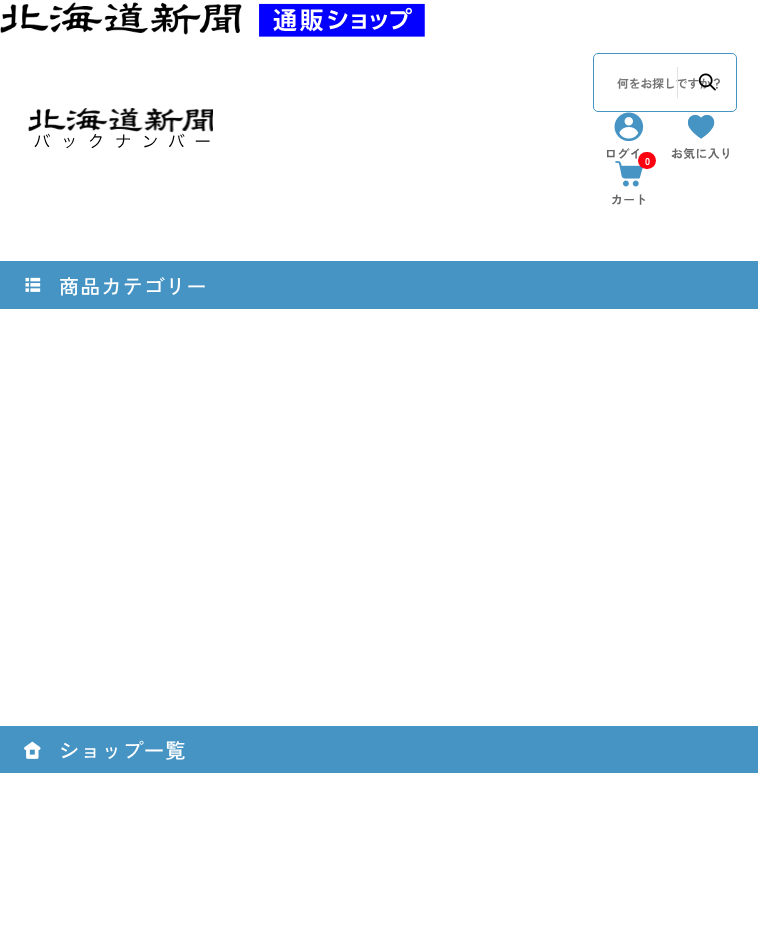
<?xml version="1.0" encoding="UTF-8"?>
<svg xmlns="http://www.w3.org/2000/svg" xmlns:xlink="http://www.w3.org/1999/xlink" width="758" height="948">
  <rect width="100%" height="100%" fill="#ffffff" />
  <image x="0" y="2" width="425" height="35" xlink:href="image1.png" />
  <image x="28" y="107" width="185" height="42" xlink:href="image2.png" />
  <rect x="593.5" y="53.5" width="143" height="58" rx="4.5" fill="none" stroke="#4694c3" />
  <image x="614" y="112" width="30" height="30" xlink:href="image4.png" />
  <image x="688" y="115" width="27" height="24" xlink:href="image5.png" />
  <image x="615" y="161" width="28" height="26" xlink:href="image6.png" />
  <rect y="261" width="758" height="48" fill="#4694c3" />
  <image x="25" y="277" width="16" height="15" xlink:href="image7.png" />
  <rect y="726" width="758" height="47" fill="#4694c3" />
  <image x="24" y="741" width="17" height="18" xlink:href="image8.png" />
  <text x="617" y="88" style="font-family: Zen Kaku Gothic Antique; font-size: 11.75px; font-weight: bold; fill: #757575">何をお探しですか？</text>
  <image x="698" y="73" width="18" height="18" xlink:href="image3.png" />
  <rect x="677" y="67" width="1" height="31" fill="#e0e0e0" />
  <text x="605" y="158" style="font-family: Zen Kaku Gothic Antique; font-size: 11.75px; font-weight: bold; letter-spacing: 0.5px; fill: #666666">ログイ</text>
  <text x="671" y="158" style="font-family: Zen Kaku Gothic Antique; font-size: 11.75px; font-weight: bold; letter-spacing: 0.5px; fill: #666666">お気に入り</text>
  <rect x="638" y="152" width="18" height="17" rx="8.5" fill="#ff0010" />
  <text x="645" y="165" style="font-family: Zen Kaku Gothic Antique; font-size: 10px; font-weight: bold; letter-spacing: 0.5px; fill: #ffffff">0</text>
  <text x="611" y="204" style="font-family: Zen Kaku Gothic Antique; font-size: 11.75px; font-weight: bold; letter-spacing: 0.5px; fill: #666666">カート</text>
  <text x="59" y="294" style="font-family: Zen Kaku Gothic Antique; font-size: 20px; font-weight: 500; letter-spacing: 1.25px; fill: #ffffff">商品カテゴリー</text>
  <text x="59" y="758" style="font-family: Zen Kaku Gothic Antique; font-size: 20px; font-weight: 500; letter-spacing: 1.25px; fill: #ffffff">ショップ一覧</text>
</svg>
